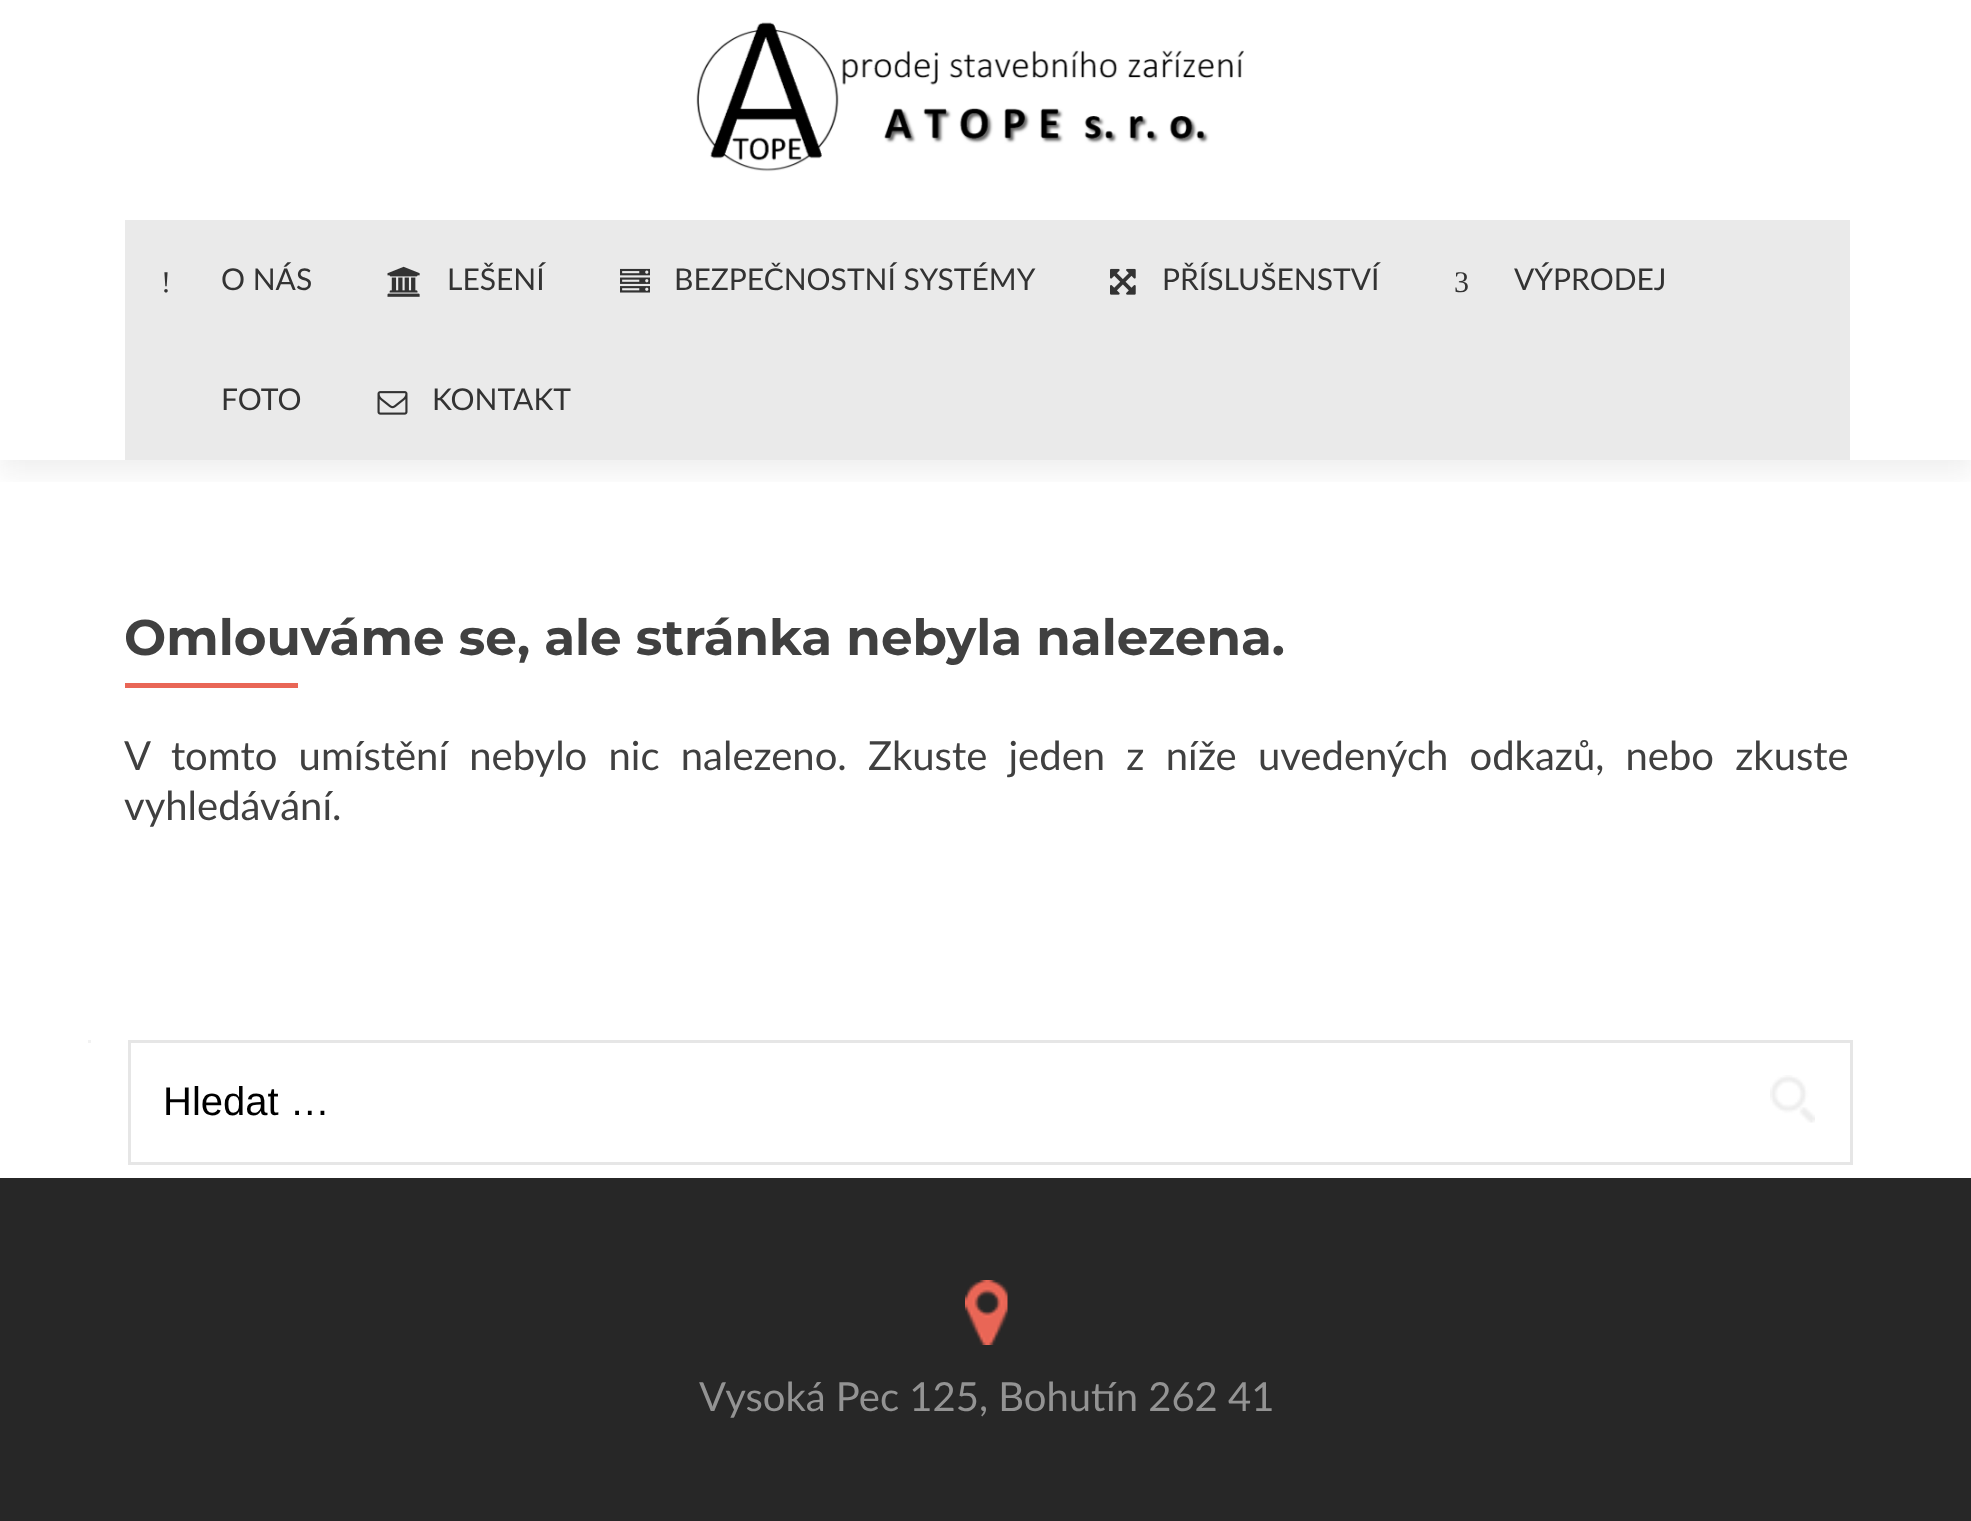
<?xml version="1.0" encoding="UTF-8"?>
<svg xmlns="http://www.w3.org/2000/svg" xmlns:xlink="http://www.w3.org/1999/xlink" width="1971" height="1521">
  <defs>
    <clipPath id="clip1"><rect x="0" y="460" width="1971" height="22" /></clipPath>
  </defs>
  <rect width="100%" height="100%" fill="#ffffff" />
  <g clip-path="url(#clip1)">
    <rect y="13" width="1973" height="460" fill="#323232" fill-opacity="0.08" filter="blur(14px)" />
  </g>
  <image x="696" y="22" width="548" height="150" xlink:href="image1.png" />
  <rect x="125" y="220" width="1725" height="240" fill="#eaeaea" />
  <image x="387" y="266" width="33" height="31" xlink:href="image2.png" />
  <image x="620" y="268" width="30" height="25" xlink:href="image3.png" />
  <image x="1110" y="268" width="26" height="27" xlink:href="image4.png" />
  <image x="377" y="391" width="31" height="24" xlink:href="image5.png" />
  <rect x="125" y="683" width="173" height="5" fill="#e96656" />
  <rect x="88" y="1040" width="3" height="3" fill="#f2f2f2" />
  <rect x="129.5" y="1041.5" width="1722" height="122" fill="none" stroke="#e6e6e6" stroke-width="3" />
  <image x="1770" y="1075" width="45" height="48" xlink:href="image6.png" />
  <rect y="1178" width="1971" height="343" fill="#272727" />
  <image x="965" y="1280" width="43" height="65" xlink:href="image7.png" />
  <text x="161" y="292" style="font-family: Liberation Serif; font-size: 30px; fill: #333333">!</text>
  <text x="221" y="290" style="font-family: Lato; font-size: 30px; fill: #333333">O NÁS</text>
  <text x="447" y="290" style="font-family: Lato; font-size: 30px; fill: #333333">LEŠENÍ</text>
  <text x="674" y="290" style="font-family: Lato; font-size: 30px; fill: #333333">BEZPEČNOSTNÍ SYSTÉMY</text>
  <text x="1162" y="290" style="font-family: Lato; font-size: 30px; fill: #333333">PŘÍSLUŠENSTVÍ</text>
  <text x="1454" y="292" style="font-family: Liberation Serif; font-size: 30px; fill: #333333">3</text>
  <text x="1514" y="290" style="font-family: Lato; font-size: 30px; fill: #333333">VÝPRODEJ</text>
  <text x="221" y="410" style="font-family: Lato; font-size: 30px; fill: #333333">FOTO</text>
  <text x="432" y="410" style="font-family: Lato; font-size: 30px; fill: #333333">KONTAKT</text>
  <text x="124" y="655" style="font-family: Montserrat; font-size: 50px; font-weight: bold; fill: #404040">Omlouváme se, ale stránka nebyla nalezena.</text>
  <text x="124" y="770" word-spacing="11" style="font-family: Lato; font-size: 40px; fill: #404040">V tomto umístění nebylo nic nalezeno. Zkuste jeden z níže uvedených odkazů, nebo zkuste</text>
  <text x="124" y="820" style="font-family: Lato; font-size: 40px; fill: #404040">vyhledávání.</text>
  <text x="163" y="1115" style="font-family: Liberation Sans; font-size: 40px; fill: #000000">Hledat …</text>
  <text x="699" y="1411" style="font-family: Lato; font-size: 40px; fill: #939393">Vysoká Pec 125, Bohutín 262 41</text>
</svg>
